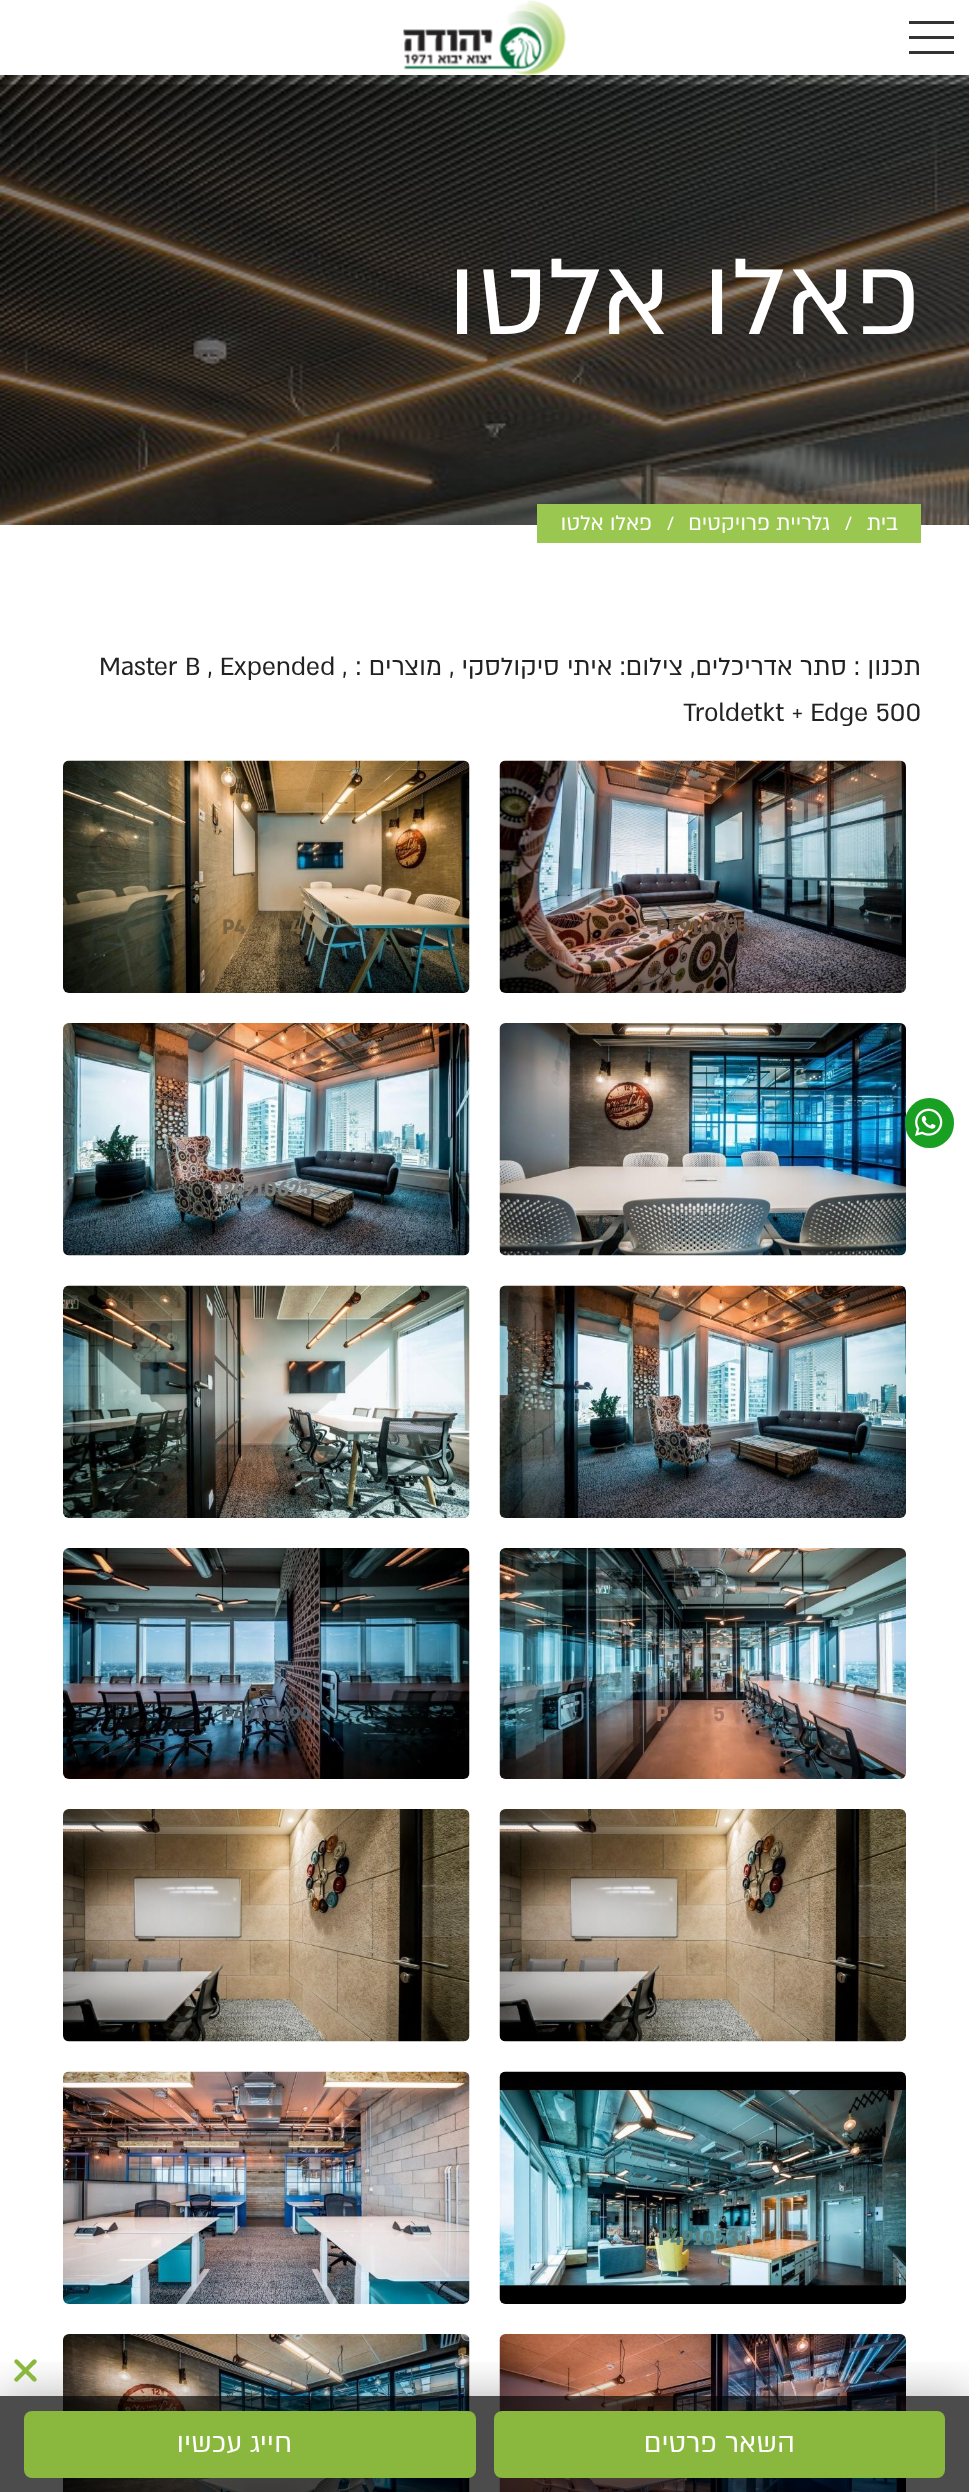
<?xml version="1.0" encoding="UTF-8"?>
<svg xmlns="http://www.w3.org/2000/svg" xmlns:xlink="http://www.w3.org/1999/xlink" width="969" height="2492">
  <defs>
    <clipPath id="clip1"><rect x="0" y="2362" width="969" height="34" /></clipPath>
  </defs>
  <rect width="100%" height="100%" fill="#ffffff" />
  <image x="499" y="1023" width="407" height="233" xlink:href="image6.png" />
  <rect x="905" y="1098" width="49" height="50" rx="24.5" fill="#199f21" />
  <image x="915" y="1108" width="28" height="28" xlink:href="image1.png" />
  <rect x="909" y="51" width="45" height="3" fill="#333333" />
  <rect x="909" y="36" width="45" height="3" fill="#333333" />
  <rect x="909" y="21" width="45" height="3" fill="#333333" />
  <image x="403" y="0" width="164" height="75" xlink:href="image2.png" />
  <image x="0" y="75" width="969" height="450" xlink:href="image3.png" />
  <rect x="537" y="504" width="384" height="39" fill="#9ac74f" />
  <image x="499" y="760" width="407" height="233" xlink:href="image4.png" />
  <image x="63" y="760" width="407" height="233" xlink:href="image5.png" />
  <image x="63" y="1023" width="407" height="233" xlink:href="image7.png" />
  <image x="499" y="1285" width="407" height="233" xlink:href="image8.png" />
  <image x="63" y="1285" width="407" height="233" xlink:href="image9.png" />
  <image x="499" y="1548" width="407" height="231" xlink:href="image10.png" />
  <image x="63" y="1548" width="407" height="231" xlink:href="image11.png" />
  <image x="499" y="1809" width="407" height="233" xlink:href="image12.png" />
  <image x="63" y="1809" width="407" height="233" xlink:href="image13.png" />
  <image x="499" y="2071" width="407" height="233" xlink:href="image14.png" />
  <image x="63" y="2071" width="407" height="233" xlink:href="image15.png" />
  <image x="499" y="2334" width="407" height="158" xlink:href="image16.png" />
  <image x="63" y="2334" width="407" height="158" xlink:href="image17.png" />
  <g clip-path="url(#clip1)">
    <rect y="2396" width="969" height="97" fill="#000000" fill-opacity="0.3" filter="blur(22.5px)" />
  </g>
  <rect y="2396" width="969" height="96" fill="#000000" fill-opacity="0.7" />
  <path d="M 15 2378 l 15 -15 c 1 -1.5 4 -5.5 6 -3 c 2.5 2 -2 5 -3 6 l -15.5 15.5 c -2.5 1 -4.5 -2 -2.5 -3.5 z" fill="#8ab73d" />
  <path d="M 18 2360 l 15 15 c 1 1 5.5 4 3 6 c -2 2.5 -5 -2 -6 -3 l -15.5 -15.5 c -1 -2.5 2 -4.5 3.5 -2.5 z" fill="#8ab73d" />
  <rect x="494" y="2411" width="451" height="67" rx="8" fill="#8ab73d" />
  <rect x="24" y="2411" width="452" height="67" rx="8" fill="#8ab73d" />
  <text x="921" y="334" style="font-family: 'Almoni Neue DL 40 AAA'; font-size: 124.5px; direction: rtl; fill: #ffffff">פאלו אלטו</text>
  <text x="898" y="530" style="font-family: 'Almoni Neue DL 40 AAA'; font-size: 24px; direction: rtl; fill: #ffffff">בית</text>
  <text x="845" y="530" style="font-family: 'Almoni Neue DL 40 AAA'; font-size: 22px; fill: #ffffff">/</text>
  <text x="830" y="530" style="font-family: 'Almoni Neue DL 40 AAA'; font-size: 24px; direction: rtl; fill: #ffffff">גלריית פרויקטים</text>
  <text x="667" y="530" style="font-family: 'Almoni Neue DL 40 AAA'; font-size: 22px; fill: #ffffff">/</text>
  <text x="652" y="530" style="font-family: 'Almoni Neue DL 40 AAA'; font-size: 24px; direction: rtl; fill: #ffffff">פאלו אלטו</text>
  <text x="921" y="675" style="font-family: 'Almoni Neue DL 40 AAA'; font-size: 28.75px; direction: rtl; fill: #222222">תכנון : סתר אדריכלים, צילום: איתי סיקולסקי , מוצרים :</text>
  <text x="99" y="675" style="font-family: 'Almoni Neue DL 40 AAA'; font-size: 28.75px; fill: #222222">Master B , Expended ,</text>
  <text x="683" y="721" style="font-family: 'Almoni Neue DL 40 AAA'; font-size: 28.75px; fill: #222222">Troldetkt + Edge 500</text>
  <text x="656" y="934" style="font-family: 'Almoni Neue DL 40 AAA'; font-size: 24px; font-weight: bold; fill: #695448">P4910655</text>
  <text x="290" y="934" style="font-family: 'Almoni Neue DL 40 AAA'; font-size: 24px; font-weight: bold; fill: #7a6340">4</text>
  <text x="222" y="934" style="font-family: 'Almoni Neue DL 40 AAA'; font-size: 24px; font-weight: bold; fill: #7a6340">P4</text>
  <text x="220" y="1196" style="font-family: 'Almoni Neue DL 40 AAA'; font-size: 24px; font-weight: bold; fill: #7c7f7e">P4910625</text>
  <text x="713" y="1721" style="font-family: 'Almoni Neue DL 40 AAA'; font-size: 24px; font-weight: bold; fill: #a87763">5</text>
  <text x="656" y="1721" style="font-family: 'Almoni Neue DL 40 AAA'; font-size: 24px; font-weight: bold; fill: #a87763">P</text>
  <text x="221" y="1721" style="font-family: 'Almoni Neue DL 40 AAA'; font-size: 24px; font-weight: bold; fill: #505d69">P4910494</text>
  <text x="658" y="2245" style="font-family: 'Almoni Neue DL 40 AAA'; font-size: 24px; font-weight: bold; fill: #59807d">P4910531</text>
  <text x="795" y="2452" style="font-family: 'Almoni Neue DL 40 AAA'; font-size: 31px; direction: rtl; fill: #ffffff">השאר פרטים</text>
  <text x="292" y="2452" style="font-family: 'Almoni Neue DL 40 AAA'; font-size: 31px; direction: rtl; fill: #ffffff">חייג עכשיו</text>
</svg>
